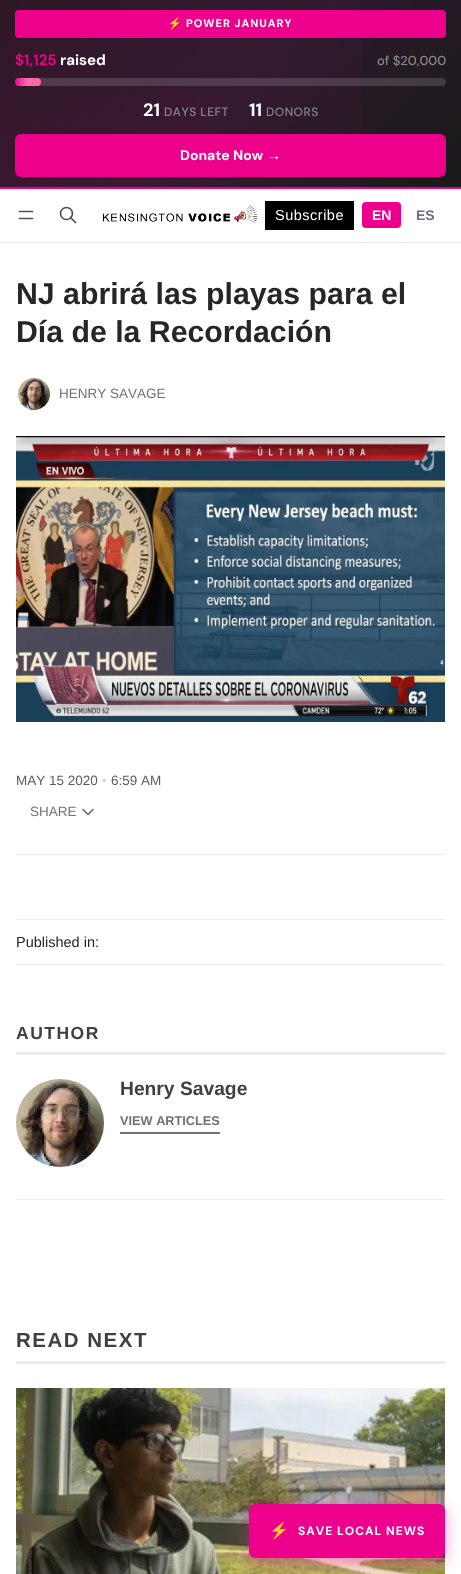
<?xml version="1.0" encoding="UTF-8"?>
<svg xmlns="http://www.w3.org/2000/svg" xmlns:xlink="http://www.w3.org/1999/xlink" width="461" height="1574">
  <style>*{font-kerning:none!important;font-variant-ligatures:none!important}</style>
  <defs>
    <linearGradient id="g1" gradientUnits="userSpaceOnUse" x1="69" y1="-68" x2="393" y2="256"><stop offset="0" stop-color="#1a1a1a" /><stop offset="0.5" stop-color="#2d1a2d" /><stop offset="1" stop-color="#1a1a1a" /></linearGradient>
    <linearGradient id="g2" gradientUnits="userSpaceOnUse" x1="-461" y1="94" x2="461" y2="93"><stop offset="0" stop-color="#ec008c" stop-opacity="0" /><stop offset="0.5" stop-color="#ec008c" stop-opacity="0.1" /><stop offset="1" stop-color="#ec008c" stop-opacity="0" /></linearGradient>
    <linearGradient id="g3" gradientUnits="userSpaceOnUse" x1="15" y1="82" x2="41" y2="82"><stop offset="0" stop-color="#ec008c" /><stop offset="1" stop-color="#ff6b9d" /></linearGradient>
    <linearGradient id="g4" gradientUnits="userSpaceOnUse" x1="15" y1="82" x2="41" y2="82"><stop offset="0" stop-color="#ffffff" stop-opacity="0" /><stop offset="0.5" stop-color="#ffffff" stop-opacity="0.3" /><stop offset="1" stop-color="#ffffff" stop-opacity="0" /></linearGradient>
  </defs>
  <rect width="100%" height="100%" fill="#ffffff" />
  <rect width="461" height="187" fill="url(#g1)" />
  <rect y="187" width="461" height="2" fill="#ec008c" />
  <rect width="362" height="187" fill="url(#g2)" />
  <rect x="15" y="10" width="431" height="28" rx="4" fill="#ec008c" />
  <rect x="15" y="78" width="431" height="8" rx="4" fill="#ffffff" fill-opacity="0.15" />
  <rect x="15" y="78" width="26" height="8" rx="4" fill="url(#g3)" />
  <rect x="15" y="78" width="26" height="8" fill="url(#g4)" />
  <rect x="15" y="134" width="431" height="43" rx="6" fill="#ec008c" />
  <rect y="242" width="461" height="1" fill="#ebebeb" />
  <path d="M 19.5 211.5 h 13 m -13 7 h 13" fill="none" stroke="#515151" stroke-width="1.7" stroke-linecap="round" stroke-linejoin="round" />
  <circle cx="66.5" cy="213.5" r="6" fill="none" stroke="#515151" stroke-width="1.7" />
  <path d="M 75.5 222.5 l -5 -5" fill="none" stroke="#515151" stroke-width="1.7" stroke-linecap="round" stroke-linejoin="round" />
  <image x="102" y="205" width="155" height="18" xlink:href="image1.png" />
  <rect x="265" y="201" width="89" height="29" fill="#000000" />
  <rect x="362" y="202" width="39" height="26" rx="4" fill="#ec008c" />
  <rect x="403" y="206" width="1" height="18" rx="0.5" fill="#ebebeb" />
  <circle cx="34" cy="394" r="17" fill="#ebebeb" stroke="#ffffff" stroke-width="2" />
  <image x="18" y="378" width="32" height="32" xlink:href="image2.png" />
  <image x="16" y="436" width="429" height="286" xlink:href="image3.png" />
  <rect x="16" y="854" width="429" height="1" fill="#ebebeb" />
  <path d="M 83 809.5 l 5 5 l 5 -5" fill="none" stroke="#707070" stroke-width="1.7" stroke-linecap="round" stroke-linejoin="round" />
  <rect x="16" y="919" width="429" height="1" fill="#ebebeb" />
  <rect x="16" y="964" width="429" height="1" fill="#ebebeb" />
  <rect x="16" y="1052" width="429" height="3" fill="#ebebeb" />
  <rect x="16" y="1199" width="429" height="1" fill="#ebebeb" />
  <circle cx="60" cy="1123" r="44" fill="#fafafa" />
  <image x="16" y="1079" width="88" height="88" xlink:href="image4.png" />
  <rect x="120" y="1132" width="100" height="2" fill="#707070" />
  <rect x="16" y="1361" width="429" height="3" fill="#ebebeb" />
  <image x="16" y="1388" width="429" height="186" xlink:href="image5.png" />
  <rect x="249" y="1508" width="196" height="54" rx="6" fill="#ec008c" fill-opacity="0.4" filter="blur(8px)" />
  <rect x="249" y="1504" width="196" height="54" rx="6" fill="#ec008c" />
  <text x="168" y="27" style="font-family: Noto Color Emoji; font-size: 11px; font-weight: bold; letter-spacing: 1px; fill: #ffffff">⚡</text>
  <text x="186" y="27" style="font-family: DM Sans; font-size: 11px; font-weight: bold; letter-spacing: 1px; fill: #ffffff">POWER JANUARY</text>
  <text x="15" y="65" style="font-family: DM Sans; font-size: 15px; font-weight: bold; fill: #ec008c">$1,125</text>
  <text x="60" y="65" style="font-family: DM Sans; font-size: 15px; font-weight: bold; fill: #ffffff">raised</text>
  <text x="377" y="65" style="font-family: DM Sans; font-size: 13px; font-weight: 500; fill: #888888">of $20,000</text>
  <text x="143" y="116" style="font-family: DM Sans; font-size: 18px; font-weight: bold; fill: #ffffff">21</text>
  <text x="164" y="116" style="font-family: DM Sans; font-size: 12px; font-weight: 500; letter-spacing: 0.5px; fill: #888888">DAYS LEFT</text>
  <text x="249" y="116" style="font-family: DM Sans; font-size: 18px; font-weight: bold; fill: #ffffff">11</text>
  <text x="266" y="116" style="font-family: DM Sans; font-size: 12px; font-weight: 500; letter-spacing: 0.5px; fill: #888888">DONORS</text>
  <text x="180" y="160" style="font-family: DM Sans; font-size: 14px; font-weight: bold; fill: #ffffff">Donate Now</text>
  <text x="267" y="160" style="font-family: Liberation Sans; font-size: 14px; font-weight: bold; fill: #ffffff">→</text>
  <text x="275" y="220" style="font-family: Liberation Sans; font-size: 14.5px; letter-spacing: 0.5px; fill: #ffffff">Subscribe</text>
  <text x="372" y="220" style="font-family: Liberation Sans; font-size: 14px; font-weight: bold; fill: #ffffff">EN</text>
  <text x="416" y="220" style="font-family: Liberation Sans; font-size: 14px; font-weight: bold; fill: #6b7280">ES</text>
  <text x="16" y="304" style="font-family: Liberation Sans; font-size: 30.25px; font-weight: bold; fill: #262626">NJ abrirá las playas para el</text>
  <text x="16" y="342" style="font-family: Liberation Sans; font-size: 30.25px; font-weight: bold; fill: #262626">Día de la Recordación</text>
  <text x="59" y="398" style="font-family: Liberation Sans; font-size: 13.5px; fill: #727272">HENRY SAVAGE</text>
  <text x="16" y="785" style="font-family: Liberation Sans; font-size: 13.5px; fill: #5c5c5c">MAY 15 2020</text>
  <text x="102" y="785" style="font-family: Liberation Sans; font-size: 13.5px; fill: #d6d6d6">•</text>
  <text x="111" y="785" style="font-family: Liberation Sans; font-size: 13.5px; fill: #5c5c5c">6:59 AM</text>
  <text x="30" y="816" style="font-family: Liberation Sans; font-size: 13.5px; fill: #727272">SHARE</text>
  <text x="16" y="947" style="font-family: Liberation Sans; font-size: 14.5px; fill: #262626">Published in:</text>
  <text x="16" y="1039" style="font-family: Liberation Sans; font-size: 17.5px; font-weight: bold; letter-spacing: 1.5px; fill: #404040">AUTHOR</text>
  <text x="120" y="1095" style="font-family: Liberation Sans; font-size: 19.25px; font-weight: bold; fill: #404040">Henry Savage</text>
  <text x="120" y="1125" style="font-family: Liberation Sans; font-size: 12.75px; font-weight: bold; fill: #727272">VIEW ARTICLES</text>
  <text x="16" y="1347" style="font-family: Liberation Sans; font-size: 20.5px; font-weight: bold; letter-spacing: 1.5px; fill: #404040">READ NEXT</text>
  <text x="269" y="1536" style="font-family: Noto Color Emoji; font-size: 16px; font-weight: bold; letter-spacing: 1px; fill: #ffffff">⚡</text>
  <text x="298" y="1535" style="font-family: DM Sans; font-size: 12px; font-weight: bold; letter-spacing: 1px; fill: #ffffff">SAVE LOCAL NEWS</text>
</svg>
